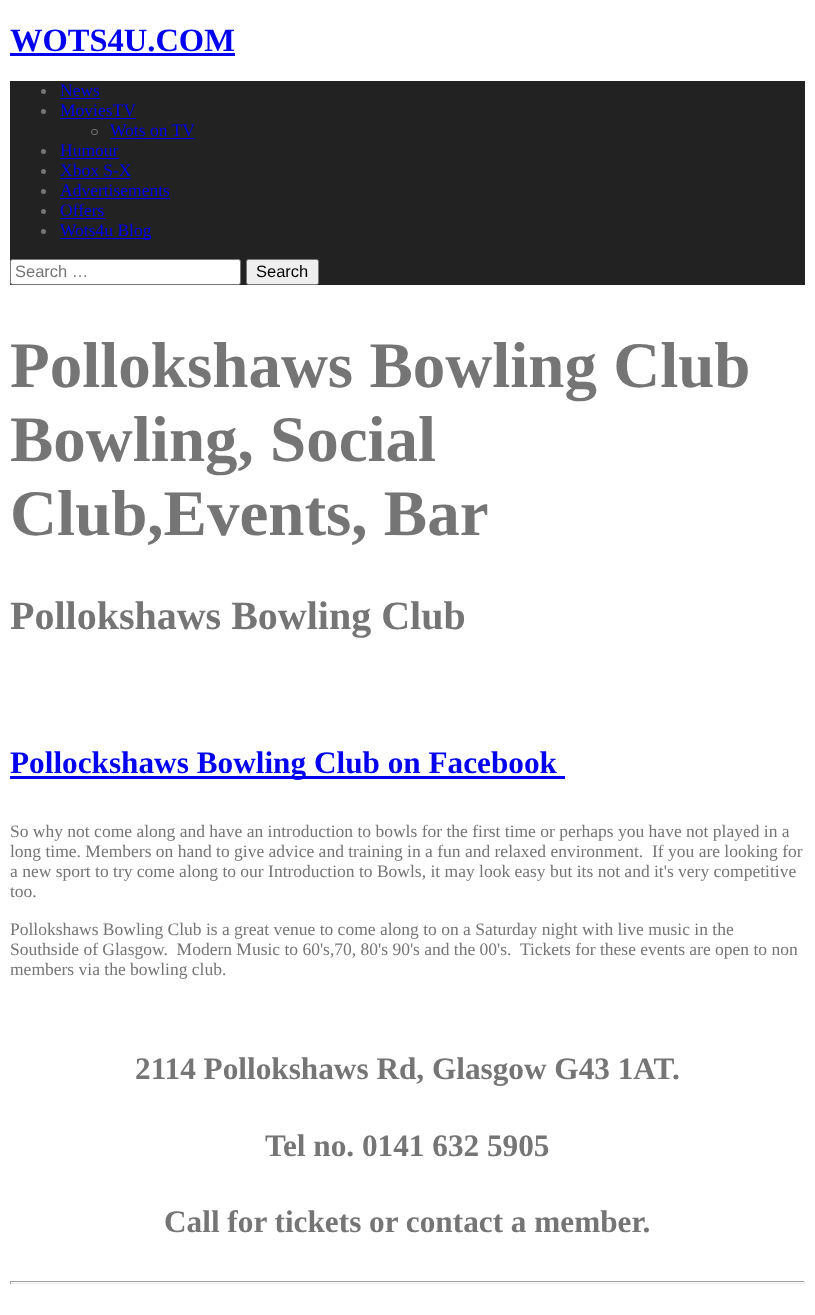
<?xml version="1.0" encoding="UTF-8"?>
<svg xmlns="http://www.w3.org/2000/svg" xmlns:xlink="http://www.w3.org/1999/xlink" width="815" height="1315">
  <rect width="100%" height="100%" fill="#ffffff" />
  <rect x="10" y="53" width="225" height="3" fill="#0000ee" />
  <rect x="10" y="81" width="795" height="204" fill="#222222" />
  <circle cx="43.5" cy="91.5" r="2.5" fill="#767676" />
  <rect x="60" y="98" width="40" height="1" fill="#0000ee" />
  <circle cx="43.5" cy="111.5" r="2.5" fill="#767676" />
  <rect x="60" y="118" width="76" height="1" fill="#0000ee" />
  <rect x="91.5" y="129.5" width="6" height="5" rx="2.5" fill="none" stroke="#767676" />
  <rect x="110" y="138" width="85" height="1" fill="#0000ee" />
  <circle cx="43.5" cy="151.5" r="2.5" fill="#767676" />
  <rect x="60" y="158" width="59" height="1" fill="#0000ee" />
  <circle cx="43.5" cy="171.5" r="2.5" fill="#767676" />
  <rect x="60" y="178" width="71" height="1" fill="#0000ee" />
  <circle cx="43.5" cy="191.5" r="2.5" fill="#767676" />
  <rect x="60" y="198" width="110" height="1" fill="#0000ee" />
  <circle cx="43.5" cy="211.5" r="2.5" fill="#767676" />
  <rect x="60" y="218" width="45" height="1" fill="#0000ee" />
  <circle cx="43.5" cy="231.5" r="2.5" fill="#767676" />
  <rect x="60" y="238" width="91" height="1" fill="#0000ee" />
  <rect x="10.5" y="259.5" width="230" height="25" rx="2" fill="#ffffff" stroke="#767676" />
  <rect x="246.5" y="259.5" width="72" height="25" rx="2" fill="#efefef" stroke="#767676" />
  <rect x="10" y="776" width="555" height="3" fill="#0000ee" />
  <rect x="10" y="1281" width="795" height="1" fill="#9f9f9f" />
  <rect x="804" y="1281" width="1" height="3" fill="#eeeeee" />
  <rect x="10" y="1283" width="795" height="1" fill="#eeeeee" />
  <rect x="10" y="1281" width="1" height="3" fill="#9f9f9f" />
  <text x="10" y="51" style="font-family: Liberation Serif; font-size: 32.5px; font-weight: bold; fill: #0000ee">WOTS4U.COM</text>
  <text x="60" y="96" style="font-family: Liberation Serif; font-size: 17.5px; fill: #0000ee">News</text>
  <text x="60" y="116" style="font-family: Liberation Serif; font-size: 17.5px; fill: #0000ee">MoviesTV</text>
  <text x="110" y="136" style="font-family: Liberation Serif; font-size: 17.5px; fill: #0000ee">Wots on TV</text>
  <text x="60" y="156" style="font-family: Liberation Serif; font-size: 17.5px; fill: #0000ee">Humour</text>
  <text x="60" y="176" style="font-family: Liberation Serif; font-size: 17.5px; fill: #0000ee">Xbox S-X</text>
  <text x="60" y="196" style="font-family: Liberation Serif; font-size: 17.5px; fill: #0000ee">Advertisements</text>
  <text x="60" y="216" style="font-family: Liberation Serif; font-size: 17.5px; fill: #0000ee">Offers</text>
  <text x="60" y="236" style="font-family: Liberation Serif; font-size: 17.5px; fill: #0000ee">Wots4u Blog</text>
  <text x="15" y="277" style="font-family: Liberation Sans; font-size: 16.5px; fill: #757575">Search …</text>
  <text x="256" y="277" style="font-family: Liberation Sans; font-size: 16.5px; fill: #000000">Search</text>
  <text x="10" y="387" style="font-family: Liberation Serif; font-size: 65px; font-weight: bold; fill: #757575">Pollokshaws Bowling Club</text>
  <text x="10" y="461" style="font-family: Liberation Serif; font-size: 65px; font-weight: bold; fill: #757575">Bowling, Social</text>
  <text x="10" y="535" style="font-family: Liberation Serif; font-size: 65px; font-weight: bold; fill: #757575">Club,Events, Bar</text>
  <text x="10" y="629" style="font-family: Liberation Serif; font-size: 40px; font-weight: bold; fill: #757575">Pollokshaws Bowling Club</text>
  <text x="10" y="773" style="font-family: Liberation Serif; font-size: 31.25px; font-weight: bold; fill: #0000ee">Pollockshaws Bowling Club on Facebook</text>
  <text x="10" y="837" style="font-family: Liberation Serif; font-size: 17.5px; fill: #757575">So why not come along and have an introduction to bowls for the first time or perhaps you have not played in a</text>
  <text x="10" y="857" style="font-family: Liberation Serif; font-size: 17.5px; fill: #757575" xml:space="preserve">long time. Members on hand to give advice and training in a fun and relaxed environment.  If you are looking for</text>
  <text x="10" y="877" style="font-family: Liberation Serif; font-size: 17.5px; fill: #757575">a new sport to try come along to our Introduction to Bowls, it may look easy but its not and it's very competitive</text>
  <text x="10" y="897" style="font-family: Liberation Serif; font-size: 17.5px; fill: #757575">too.</text>
  <text x="10" y="935" style="font-family: Liberation Serif; font-size: 17.5px; fill: #757575">Pollokshaws Bowling Club is a great venue to come along to on a Saturday night with live music in the</text>
  <text x="10" y="955" style="font-family: Liberation Serif; font-size: 17.5px; fill: #757575" xml:space="preserve">Southside of Glasgow.  Modern Music to 60's,70, 80's 90's and the 00's.  Tickets for these events are open to non</text>
  <text x="10" y="975" style="font-family: Liberation Serif; font-size: 17.5px; fill: #757575">members via the bowling club.</text>
  <text x="135" y="1079" style="font-family: Liberation Serif; font-size: 31.25px; font-weight: bold; fill: #757575">2114 Pollokshaws Rd, Glasgow G43 1AT.</text>
  <text x="265" y="1156" style="font-family: Liberation Serif; font-size: 31.25px; font-weight: bold; fill: #757575">Tel no. 0141 632 5905</text>
  <text x="164" y="1232" style="font-family: Liberation Serif; font-size: 31.25px; font-weight: bold; fill: #757575">Call for tickets or contact a member.</text>
</svg>
